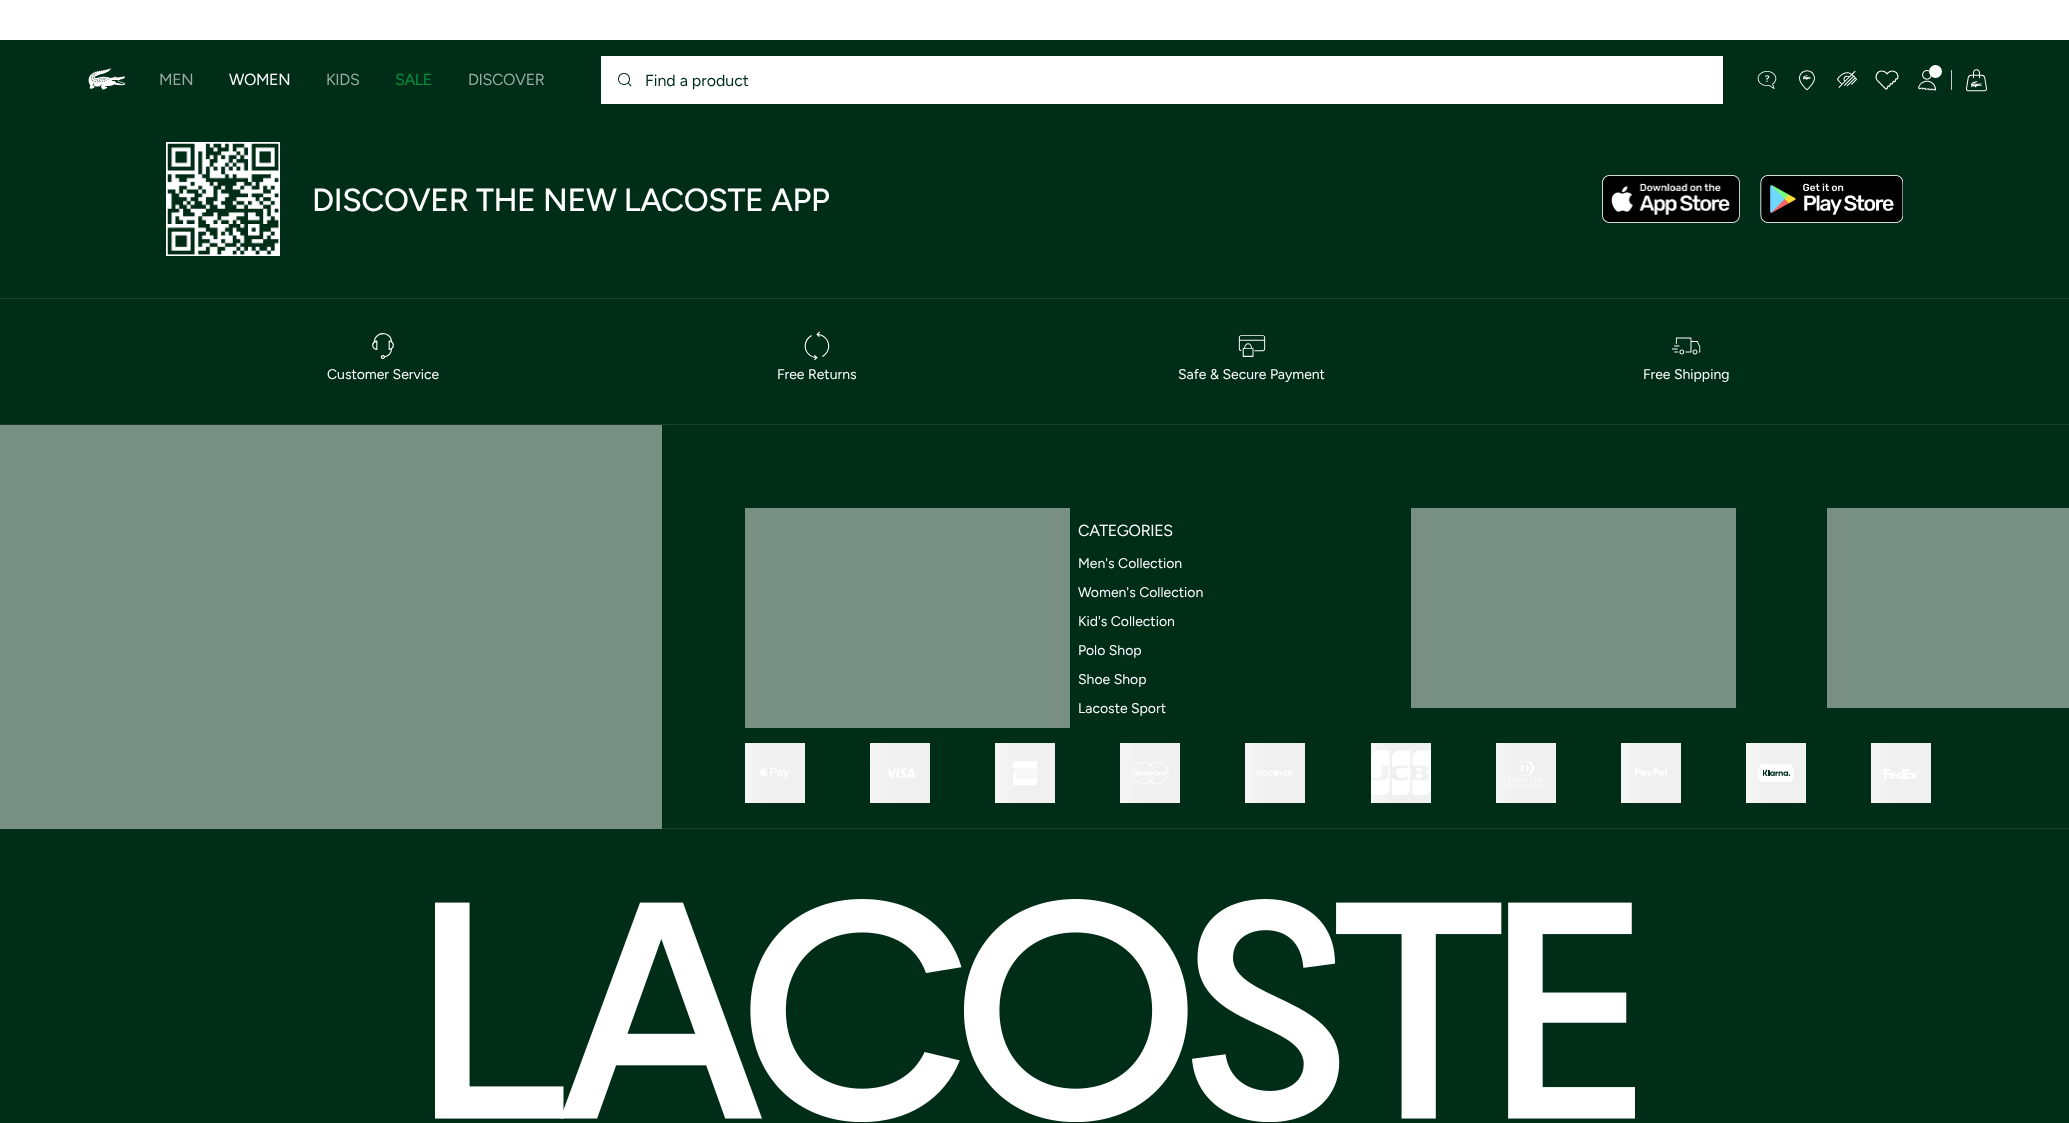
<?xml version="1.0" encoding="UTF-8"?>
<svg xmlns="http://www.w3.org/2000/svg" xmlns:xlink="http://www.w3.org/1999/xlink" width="2069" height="1123">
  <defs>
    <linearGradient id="g1" gradientUnits="userSpaceOnUse" x1="625" y1="773" x2="805" y2="773"><stop offset="0.22" stop-color="#f0f0f0" /><stop offset="0.5" stop-color="#ffffff" /><stop offset="0.78" stop-color="#f0f0f0" /></linearGradient>
    <linearGradient id="g2" gradientUnits="userSpaceOnUse" x1="750" y1="773" x2="930" y2="773"><stop offset="0.22" stop-color="#f0f0f0" /><stop offset="0.5" stop-color="#ffffff" /><stop offset="0.78" stop-color="#f0f0f0" /></linearGradient>
    <linearGradient id="g3" gradientUnits="userSpaceOnUse" x1="875" y1="773" x2="1055" y2="773"><stop offset="0.22" stop-color="#f0f0f0" /><stop offset="0.5" stop-color="#ffffff" /><stop offset="0.78" stop-color="#f0f0f0" /></linearGradient>
    <linearGradient id="g4" gradientUnits="userSpaceOnUse" x1="1000" y1="773" x2="1180" y2="773"><stop offset="0.22" stop-color="#f0f0f0" /><stop offset="0.5" stop-color="#ffffff" /><stop offset="0.78" stop-color="#f0f0f0" /></linearGradient>
    <linearGradient id="g5" gradientUnits="userSpaceOnUse" x1="1125" y1="773" x2="1305" y2="773"><stop offset="0.22" stop-color="#f0f0f0" /><stop offset="0.5" stop-color="#ffffff" /><stop offset="0.78" stop-color="#f0f0f0" /></linearGradient>
    <linearGradient id="g6" gradientUnits="userSpaceOnUse" x1="1251" y1="773" x2="1431" y2="773"><stop offset="0.22" stop-color="#f0f0f0" /><stop offset="0.5" stop-color="#ffffff" /><stop offset="0.78" stop-color="#f0f0f0" /></linearGradient>
    <linearGradient id="g7" gradientUnits="userSpaceOnUse" x1="1376" y1="773" x2="1556" y2="773"><stop offset="0.22" stop-color="#f0f0f0" /><stop offset="0.5" stop-color="#ffffff" /><stop offset="0.78" stop-color="#f0f0f0" /></linearGradient>
    <linearGradient id="g8" gradientUnits="userSpaceOnUse" x1="1501" y1="773" x2="1681" y2="773"><stop offset="0.22" stop-color="#f0f0f0" /><stop offset="0.5" stop-color="#ffffff" /><stop offset="0.78" stop-color="#f0f0f0" /></linearGradient>
    <linearGradient id="g9" gradientUnits="userSpaceOnUse" x1="1626" y1="773" x2="1806" y2="773"><stop offset="0.22" stop-color="#f0f0f0" /><stop offset="0.5" stop-color="#ffffff" /><stop offset="0.78" stop-color="#f0f0f0" /></linearGradient>
    <linearGradient id="g10" gradientUnits="userSpaceOnUse" x1="1751" y1="773" x2="1931" y2="773"><stop offset="0.22" stop-color="#f0f0f0" /><stop offset="0.5" stop-color="#ffffff" /><stop offset="0.78" stop-color="#f0f0f0" /></linearGradient>
  </defs>
  <rect width="100%" height="100%" fill="#002d18" />
  <rect width="2069" height="40" fill="#ffffff" />
  <image x="88" y="68" width="38" height="22" xlink:href="image1.png" />
  <rect x="601" y="56" width="1122" height="48" fill="#ffffff" />
  <image x="618" y="73" width="14" height="14" xlink:href="image2.png" />
  <image x="1757" y="71" width="20" height="18" xlink:href="image3.png" />
  <image x="1799" y="70" width="16" height="21" xlink:href="image4.png" />
  <image x="1837" y="70" width="20" height="18" xlink:href="image5.png" />
  <image x="1875" y="70" width="24" height="20" xlink:href="image6.png" />
  <image x="1918" y="70" width="18" height="21" xlink:href="image7.png" />
  <circle cx="1935.5" cy="71.5" r="6.5" fill="#ffffff" />
  <rect x="1951" y="70" width="1" height="20" fill="#c8c8c8" />
  <image x="1966" y="69" width="21" height="23" xlink:href="image8.png" />
  <rect y="298" width="2069" height="1" fill="#1a422f" />
  <image x="166" y="142" width="114" height="114" xlink:href="image9.png" />
  <image x="1602" y="175" width="138" height="48" xlink:href="image10.png" />
  <image x="1760" y="175" width="143" height="48" xlink:href="image11.png" />
  <image x="372" y="333" width="22" height="26" xlink:href="image12.png" />
  <image x="804" y="331" width="26" height="30" xlink:href="image13.png" />
  <image x="1238" y="335" width="28" height="22" xlink:href="image14.png" />
  <image x="1671" y="337" width="30" height="18" xlink:href="image15.png" />
  <rect y="424" width="2069" height="1" fill="#1a422f" />
  <rect y="425" width="662" height="404" fill="#788f84" />
  <rect x="662" y="828" width="1407" height="1" fill="#1a422f" />
  <rect x="745" y="508" width="325" height="220" fill="#788f84" />
  <rect x="1411" y="508" width="325" height="200" fill="#788f84" />
  <rect x="1827" y="508" width="242" height="200" fill="#788f84" />
  <rect x="745" y="743" width="60" height="60" fill="url(#g1)" />
  <image x="760" y="767" width="29" height="11" xlink:href="image16.png" />
  <rect x="870" y="743" width="60" height="60" fill="url(#g2)" />
  <image x="885" y="768" width="30" height="10" xlink:href="image17.png" />
  <rect x="995" y="743" width="60" height="60" fill="url(#g3)" />
  <image x="1013" y="761" width="24" height="24" xlink:href="image18.png" />
  <rect x="1120" y="743" width="60" height="60" fill="url(#g4)" />
  <image x="1132" y="761" width="37" height="24" xlink:href="image19.png" />
  <rect x="1245" y="743" width="60" height="60" fill="url(#g5)" />
  <image x="1257" y="770" width="36" height="6" xlink:href="image20.png" />
  <rect x="1371" y="743" width="60" height="60" fill="url(#g6)" />
  <image x="1371" y="750" width="60" height="45" xlink:href="image21.png" />
  <rect x="1496" y="743" width="60" height="60" fill="url(#g7)" />
  <image x="1508" y="761" width="36" height="26" xlink:href="image22.png" />
  <rect x="1621" y="743" width="60" height="60" fill="url(#g8)" />
  <image x="1634" y="768" width="34" height="9" xlink:href="image23.png" />
  <rect x="1746" y="743" width="60" height="60" fill="url(#g9)" />
  <image x="1758" y="764" width="36" height="18" xlink:href="image24.png" />
  <rect x="1871" y="743" width="60" height="60" fill="url(#g10)" />
  <image x="1884" y="769" width="34" height="10" xlink:href="image25.png" />
  <image x="435" y="899" width="1200" height="223" xlink:href="image26.png" />
  <text x="159" y="85" style="font-family: Figtree; font-size: 16px; letter-spacing: -0.4px; fill: #99aba3">MEN</text>
  <text x="229" y="85" style="font-family: Figtree; font-size: 16px; letter-spacing: -0.4px; fill: #ffffff">WOMEN</text>
  <text x="326" y="85" style="font-family: Figtree; font-size: 16px; letter-spacing: -0.4px; fill: #99aba3">KIDS</text>
  <text x="395" y="85" style="font-family: Figtree; font-size: 16px; letter-spacing: -0.4px; fill: #05913e">SALE</text>
  <text x="468" y="85" style="font-family: Figtree; font-size: 16px; letter-spacing: -0.4px; fill: #99aba3">DISCOVER</text>
  <text x="645" y="86" style="font-family: Figtree; font-size: 16px; fill: #002d18">Find a product</text>
  <text x="312" y="211" style="font-family: Figtree; font-size: 32px; font-weight: 500; letter-spacing: -0.4px; fill: #ffffff">DISCOVER THE NEW LACOSTE APP</text>
  <text x="327" y="379" style="font-family: Figtree; font-size: 14px; fill: #ffffff">Customer Service</text>
  <text x="777" y="379" style="font-family: Figtree; font-size: 14px; fill: #ffffff">Free Returns</text>
  <text x="1178" y="379" style="font-family: Figtree; font-size: 14px; fill: #ffffff">Safe &amp; Secure Payment</text>
  <text x="1643" y="379" style="font-family: Figtree; font-size: 14px; fill: #ffffff">Free Shipping</text>
  <text x="1078" y="536" style="font-family: Figtree; font-size: 16px; letter-spacing: -0.4px; fill: #ffffff">CATEGORIES</text>
  <text x="1078" y="568" style="font-family: Figtree; font-size: 14px; fill: #ffffff">Men's Collection</text>
  <text x="1078" y="597" style="font-family: Figtree; font-size: 14px; fill: #ffffff">Women's Collection</text>
  <text x="1078" y="626" style="font-family: Figtree; font-size: 14px; fill: #ffffff">Kid's Collection</text>
  <text x="1078" y="655" style="font-family: Figtree; font-size: 14px; fill: #ffffff">Polo Shop</text>
  <text x="1078" y="684" style="font-family: Figtree; font-size: 14px; fill: #ffffff">Shoe Shop</text>
  <text x="1078" y="713" style="font-family: Figtree; font-size: 14px; fill: #ffffff">Lacoste Sport</text>
</svg>
